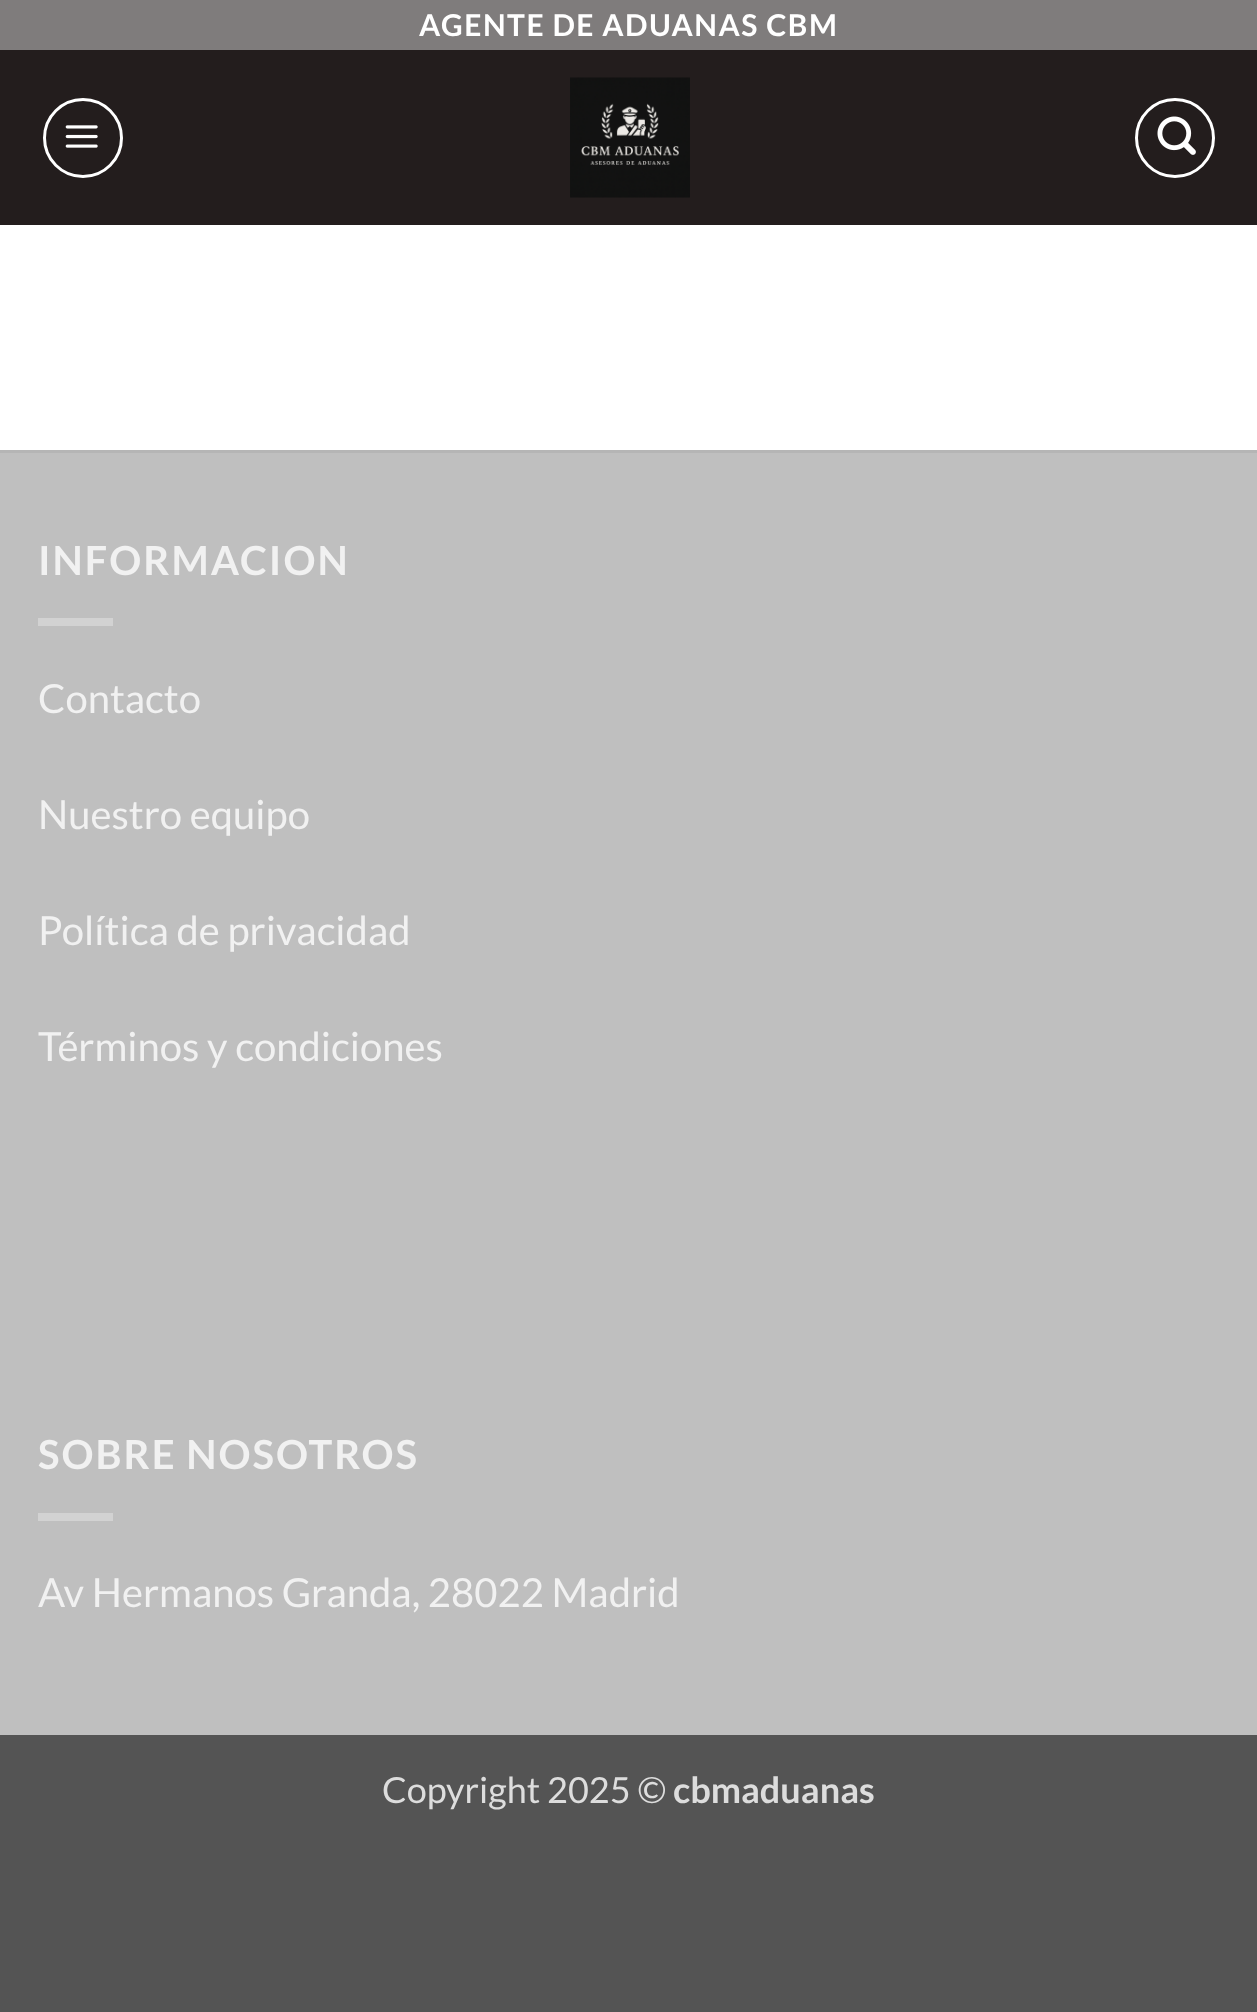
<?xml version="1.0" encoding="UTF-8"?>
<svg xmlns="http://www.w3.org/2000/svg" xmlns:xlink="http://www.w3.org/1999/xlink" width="1257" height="2012">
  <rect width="100%" height="100%" fill="#545454" />
  <rect y="225" width="1257" height="225" fill="#ffffff" />
  <rect width="1257" height="50" fill="#7f7c7c" />
  <rect y="50" width="1257" height="175" fill="#231d1d" />
  <circle cx="83" cy="138" r="38.5" fill="none" stroke="#ffffff" stroke-width="3" />
  <image x="65" y="125" width="33" height="23" xlink:href="image1.png" />
  <image x="570" y="77" width="120" height="121" xlink:href="image2.png" />
  <circle cx="1175" cy="138" r="38.5" fill="none" stroke="#ffffff" stroke-width="3" />
  <image x="1157" y="116" width="39" height="39" xlink:href="image3.png" />
  <rect y="453" width="1257" height="1282" fill="#bfbfbf" />
  <rect y="450" width="1257" height="3" fill="#b5b5b5" />
  <rect x="38" y="618" width="75" height="8" fill="#d2d2d2" />
  <rect x="38" y="1513" width="75" height="8" fill="#d2d2d2" />
  <text x="419" y="36" style="font-family: Lato; font-size: 30px; font-weight: bold; letter-spacing: 1.5px; fill: #ffffff">AGENTE DE ADUANAS CBM</text>
  <text x="38" y="575" style="font-family: Lato; font-size: 40px; font-weight: bold; letter-spacing: 2px; fill: #f1f1f1">INFORMACION</text>
  <text x="38" y="713" style="font-family: Lato; font-size: 40px; fill: #f1f1f1">Contacto</text>
  <text x="38" y="829" style="font-family: Lato; font-size: 40px; fill: #f1f1f1">Nuestro equipo</text>
  <text x="38" y="945" style="font-family: Lato; font-size: 40px; fill: #f1f1f1">Política de privacidad</text>
  <text x="38" y="1061" style="font-family: Lato; font-size: 40px; fill: #f1f1f1">Términos y condiciones</text>
  <text x="38" y="1469" style="font-family: Lato; font-size: 40px; font-weight: bold; letter-spacing: 2px; fill: #f1f1f1">SOBRE NOSOTROS</text>
  <text x="38" y="1607" style="font-family: Lato; font-size: 40px; fill: #f1f1f1">Av Hermanos Granda, 28022 Madrid</text>
  <text x="382" y="1803" style="font-family: Lato; font-size: 36px; fill: #dddddd">Copyright 2025 ©</text>
  <text x="673" y="1803" style="font-family: Lato; font-size: 36px; font-weight: bold; fill: #dddddd">cbmaduanas</text>
</svg>
